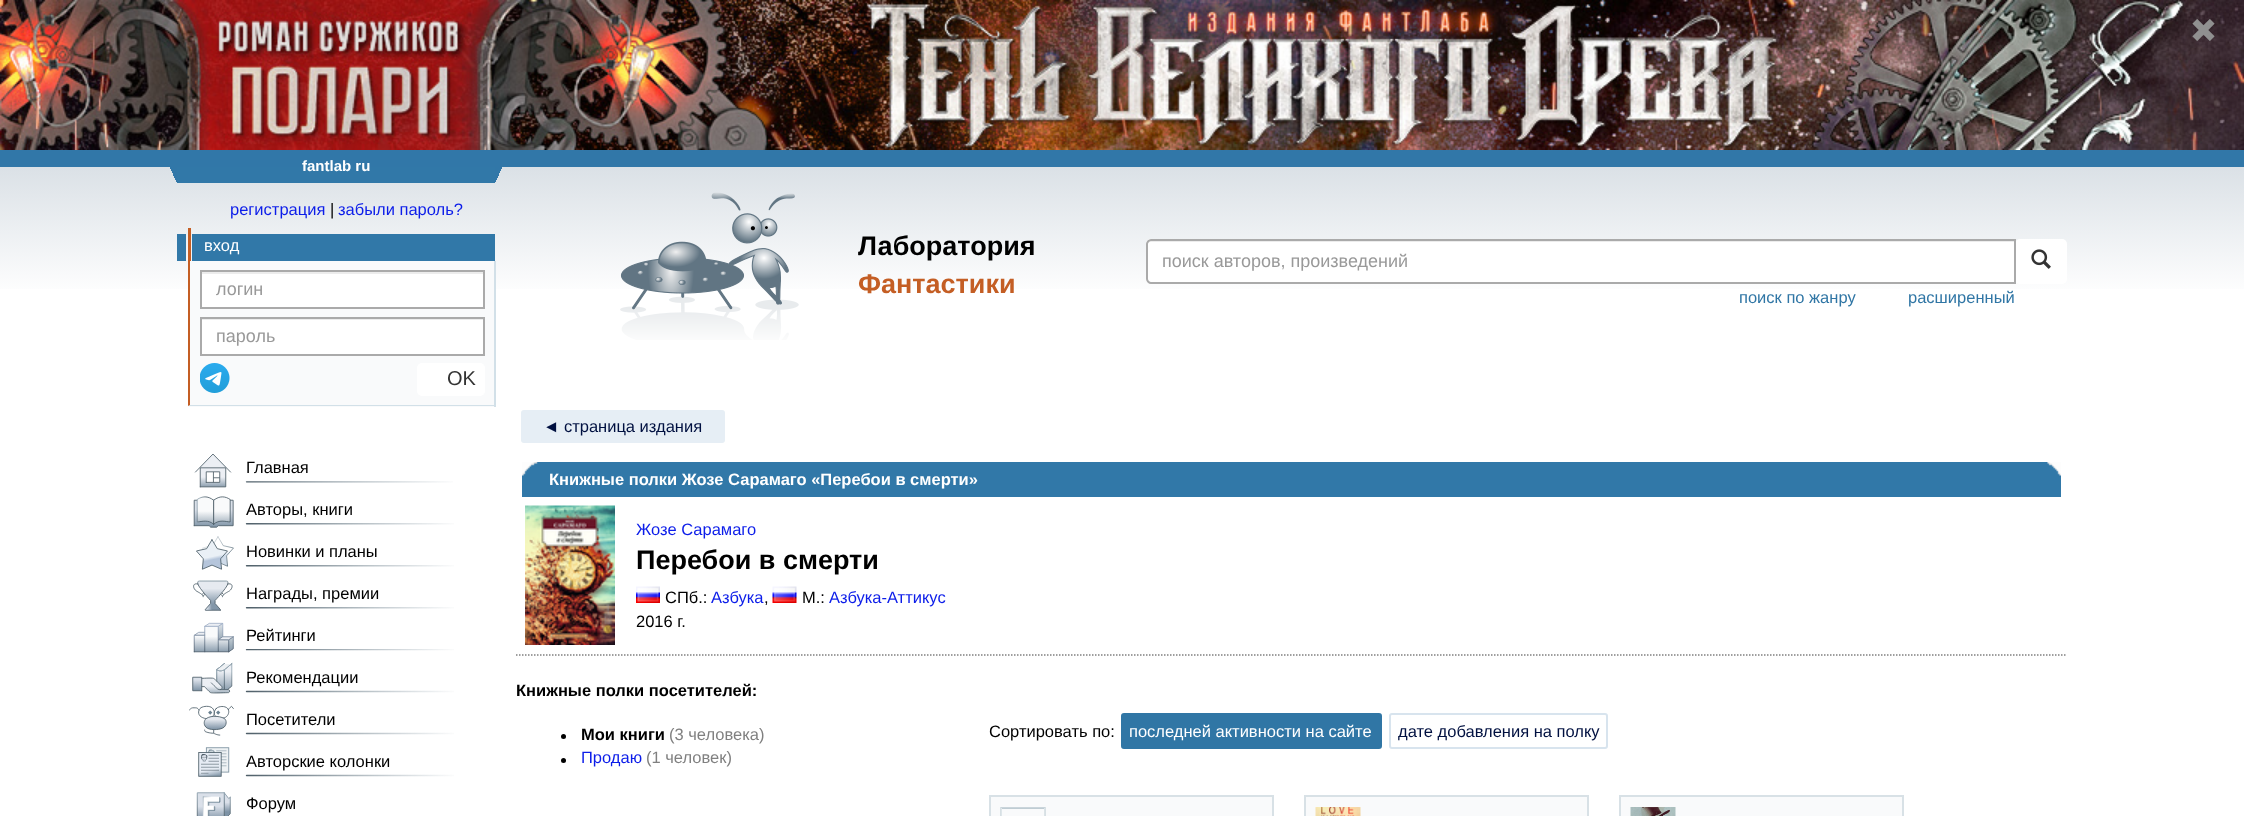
<?xml version="1.0" encoding="UTF-8"?>
<svg xmlns="http://www.w3.org/2000/svg" xmlns:xlink="http://www.w3.org/1999/xlink" width="2244" height="816">
  <defs>
    <linearGradient id="g1" gradientUnits="userSpaceOnUse" x1="1122" y1="150" x2="1122" y2="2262"><stop offset="0" stop-color="#d6dde3" /><stop offset="0.07" stop-color="#ffffff" /></linearGradient>
    <linearGradient id="g2" gradientUnits="userSpaceOnUse" x1="157" y1="172" x2="182" y2="161"><stop offset="0" stop-color="#000000" stop-opacity="0" /><stop offset="0.5" stop-color="#3177a8" stop-opacity="0" /><stop offset="0.5" stop-color="#3177a8" /><stop offset="1" stop-color="#3177a8" /></linearGradient>
    <linearGradient id="g3" gradientUnits="userSpaceOnUse" x1="515" y1="172" x2="490" y2="161"><stop offset="0" stop-color="#000000" stop-opacity="0" /><stop offset="0.5" stop-color="#3177a8" stop-opacity="0" /><stop offset="0.5" stop-color="#3177a8" /><stop offset="1" stop-color="#3177a8" /></linearGradient>
  </defs>
  <rect width="100%" height="100%" fill="#ffffff" />
  <image x="0" y="0" width="2244" height="150" xlink:href="image1.png" />
  <image x="2192" y="19" width="23" height="22" xlink:href="image2.png" />
  <rect y="167" width="2244" height="122" fill="url(#g1)" />
  <rect y="150" width="2244" height="17" fill="#3177a8" />
  <rect x="170" y="167" width="7" height="15" fill="url(#g2)" />
  <rect x="177" y="167" width="318" height="16" fill="#3178a8" />
  <rect x="495" y="167" width="7" height="15" fill="url(#g3)" />
  <rect x="177" y="234" width="9" height="27" fill="#3178a8" />
  <rect x="188" y="228" width="3" height="33" fill="#c45e24" />
  <rect x="192" y="234" width="303" height="27" fill="#3178a8" />
  <rect x="188" y="261" width="306" height="146" fill="#f9fafb" />
  <rect x="494" y="261" width="2" height="146" fill="#d2e0e8" />
  <path d="M 495 406 h -307 l 2 -1 h 304 z" fill="#d2e0e8" />
  <path d="M 188 406 v -145 h 2 v 144 z" fill="#c45e24" />
  <rect x="202" y="274" width="281" height="33" fill="#ffffff" />
  <rect x="201" y="272" width="282" height="2" fill="#ececec" />
  <rect x="201" y="271" width="283" height="37" fill="none" stroke="#aaaaaa" stroke-width="2" />
  <rect x="202" y="320" width="281" height="34" fill="#ffffff" />
  <rect x="201" y="319" width="282" height="1" fill="#ececec" />
  <rect x="201" y="318" width="283" height="37" fill="none" stroke="#aaaaaa" stroke-width="2" />
  <image x="200" y="363" width="30" height="30" xlink:href="image3.png" />
  <rect x="417" y="363" width="68" height="33" rx="5" fill="#ffffff" />
  <image x="620" y="192" width="179" height="148" xlink:href="image4.png" />
  <rect x="2015" y="239" width="52" height="45" rx="5" fill="#ffffff" />
  <path d="M 1151 239 h 865 v 45 h -865 c -3 0 -5 -2 -5 -5 v -35 c 0 -3 2 -5 5 -5 z" fill="#ffffff" />
  <path d="M 1150 242 h 864 v 40 h 1 v -42 h -864 c -2 0 -3 2 -3 4 c 0 -1 1 -2 2 -2 z" fill="#ececec" />
  <path d="M 1151 240 h 864 v 43 h -864 c -2 0 -4 -2 -4 -4 v -35 c 0 -2 2 -4 4 -4 z" fill="none" stroke="#aaaaaa" stroke-width="2" />
  <image x="2031" y="249" width="20" height="20" xlink:href="image5.png" />
  <image x="194" y="454" width="259" height="34" xlink:href="image6.png" />
  <image x="193" y="496" width="261" height="32" xlink:href="image7.png" />
  <image x="196" y="536" width="258" height="34" xlink:href="image8.png" />
  <image x="193" y="580" width="261" height="31" xlink:href="image9.png" />
  <image x="193" y="622" width="261" height="31" xlink:href="image10.png" />
  <image x="192" y="662" width="262" height="32" xlink:href="image11.png" />
  <image x="189" y="705" width="265" height="31" xlink:href="image12.png" />
  <image x="198" y="747" width="256" height="30" xlink:href="image13.png" />
  <image x="196" y="792" width="35" height="24" xlink:href="image14.png" />
  <rect x="521" y="410" width="204" height="33" rx="3" fill="#e6eef5" />
  <rect x="522" y="462" width="1539" height="35" fill="#3178a8" />
  <image x="522" y="462" width="16" height="14" xlink:href="image15.png" />
  <image x="2047" y="462" width="14" height="14" xlink:href="image16.png" />
  <path d="M 516 655 h 1551" fill="none" stroke="#808080" stroke-width="1.5" stroke-dasharray="1.5 1.5" />
  <image x="525" y="505" width="90" height="140" xlink:href="image17.png" />
  <image x="636" y="586" width="24" height="17" xlink:href="image18.png" />
  <image x="772" y="586" width="25" height="17" xlink:href="image19.png" />
  <circle cx="563.5" cy="736.5" r="2.5" fill="#000000" />
  <circle cx="563.5" cy="760.5" r="2.5" fill="#000000" />
  <rect x="1122" y="714" width="259" height="34" rx="2" fill="#3076a5" stroke="#3076a5" stroke-width="2" />
  <rect x="1390" y="714" width="217" height="34" rx="2" fill="none" stroke="#d8e4ee" stroke-width="2" />
  <rect x="990" y="796" width="283" height="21" fill="#f9fafb" stroke="#d8e1e6" stroke-width="2" />
  <image x="1000" y="807" width="46" height="9" xlink:href="image20.png" />
  <rect x="1305" y="796" width="283" height="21" fill="#f9fafb" stroke="#d8e1e6" stroke-width="2" />
  <image x="1315" y="807" width="46" height="9" xlink:href="image21.png" />
  <rect x="1620" y="796" width="283" height="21" fill="#f9fafb" stroke="#d8e1e6" stroke-width="2" />
  <image x="1630" y="807" width="46" height="9" xlink:href="image22.png" />
  <text x="302" y="171" style="font-family: Liberation Sans; font-size: 15px; font-weight: bold; fill: #ffffff">fantlab ru</text>
  <text x="230" y="215" style="font-family: Liberation Sans; font-size: 16.5px; fill: #0c1de9">регистрация</text>
  <text x="330" y="215" style="font-family: Liberation Sans; font-size: 16.5px; fill: #000000">|</text>
  <text x="338" y="215" style="font-family: Liberation Sans; font-size: 16.5px; fill: #0c1de9">забыли пароль?</text>
  <text x="204" y="251" style="font-family: Liberation Sans; font-size: 16.5px; fill: #ffffff">вход</text>
  <text x="216" y="295" style="font-family: Liberation Sans; font-size: 18px; fill: #999999">логин</text>
  <text x="216" y="342" style="font-family: Liberation Sans; font-size: 18px; fill: #999999">пароль</text>
  <text x="447" y="385" style="font-family: Liberation Sans; font-size: 20px; fill: #333333">OK</text>
  <text x="858" y="255" style="font-family: Liberation Sans; font-size: 27px; font-weight: bold; fill: #000000">Лаборатория</text>
  <text x="858" y="293" style="font-family: Liberation Sans; font-size: 27px; font-weight: bold; fill: #c45e24">Фантастики</text>
  <text x="1162" y="267" style="font-family: Liberation Sans; font-size: 18px; fill: #999999">поиск авторов, произведений</text>
  <text x="1739" y="303" style="font-family: Liberation Sans; font-size: 16.5px; fill: #3076a5">поиск по жанру</text>
  <text x="1908" y="303" style="font-family: Liberation Sans; font-size: 16.5px; fill: #3076a5">расширенный</text>
  <text x="246" y="473" style="font-family: Liberation Sans; font-size: 16.5px; fill: #000000">Главная</text>
  <text x="246" y="515" style="font-family: Liberation Sans; font-size: 16.5px; fill: #000000">Авторы, книги</text>
  <text x="246" y="557" style="font-family: Liberation Sans; font-size: 16.5px; fill: #000000">Новинки и планы</text>
  <text x="246" y="599" style="font-family: Liberation Sans; font-size: 16.5px; fill: #000000">Награды, премии</text>
  <text x="246" y="641" style="font-family: Liberation Sans; font-size: 16.5px; fill: #000000">Рейтинги</text>
  <text x="246" y="683" style="font-family: Liberation Sans; font-size: 16.5px; fill: #000000">Рекомендации</text>
  <text x="246" y="725" style="font-family: Liberation Sans; font-size: 16.5px; fill: #000000">Посетители</text>
  <text x="246" y="767" style="font-family: Liberation Sans; font-size: 16.5px; fill: #000000">Авторские колонки</text>
  <text x="246" y="809" style="font-family: Liberation Sans; font-size: 16.5px; fill: #000000">Форум</text>
  <text x="543" y="432" style="font-family: Liberation Sans; font-size: 16.5px; fill: #001040">◄ страница издания</text>
  <text x="549" y="485" style="font-family: Liberation Sans; font-size: 16.5px; font-weight: bold; fill: #ffffff">Книжные полки Жозе Сарамаго «Перебои в смерти»</text>
  <text x="636" y="535" style="font-family: Liberation Sans; font-size: 16.5px; fill: #0c1de9">Жозе Сарамаго</text>
  <text x="636" y="569" style="font-family: Liberation Sans; font-size: 27px; font-weight: bold; fill: #000000">Перебои в смерти</text>
  <text x="665" y="603" style="font-family: Liberation Sans; font-size: 16.5px; fill: #000000">СПб.:</text>
  <text x="711" y="603" style="font-family: Liberation Sans; font-size: 16.5px; fill: #0c1de9">Азбука</text>
  <text x="802" y="603" style="font-family: Liberation Sans; font-size: 16.5px; fill: #000000">М.:</text>
  <text x="829" y="603" style="font-family: Liberation Sans; font-size: 16.5px; fill: #0c1de9">Азбука-Аттикус</text>
  <text x="764" y="603" style="font-family: Liberation Sans; font-size: 16.5px; fill: #000000">,</text>
  <text x="636" y="627" style="font-family: Liberation Sans; font-size: 16.5px; fill: #000000">2016 г.</text>
  <text x="516" y="696" style="font-family: Liberation Sans; font-size: 16.5px; font-weight: bold; fill: #000000">Книжные полки посетителей:</text>
  <text x="581" y="740" style="font-family: Liberation Sans; font-size: 16.5px; font-weight: bold; fill: #000000">Мои книги</text>
  <text x="669" y="740" style="font-family: Liberation Sans; font-size: 16.5px; fill: #808080">(3 человека)</text>
  <text x="581" y="763" style="font-family: Liberation Sans; font-size: 16.5px; fill: #0c1de9">Продаю</text>
  <text x="646" y="763" style="font-family: Liberation Sans; font-size: 16.5px; fill: #808080">(1 человек)</text>
  <text x="989" y="737" style="font-family: Liberation Sans; font-size: 16.5px; fill: #000000">Сортировать по:</text>
  <text x="1129" y="737" style="font-family: Liberation Sans; font-size: 16.5px; fill: #ffffff">последней активности на сайте</text>
  <text x="1398" y="737" style="font-family: Liberation Sans; font-size: 16.5px; fill: #001040">дате добавления на полку</text>
</svg>
